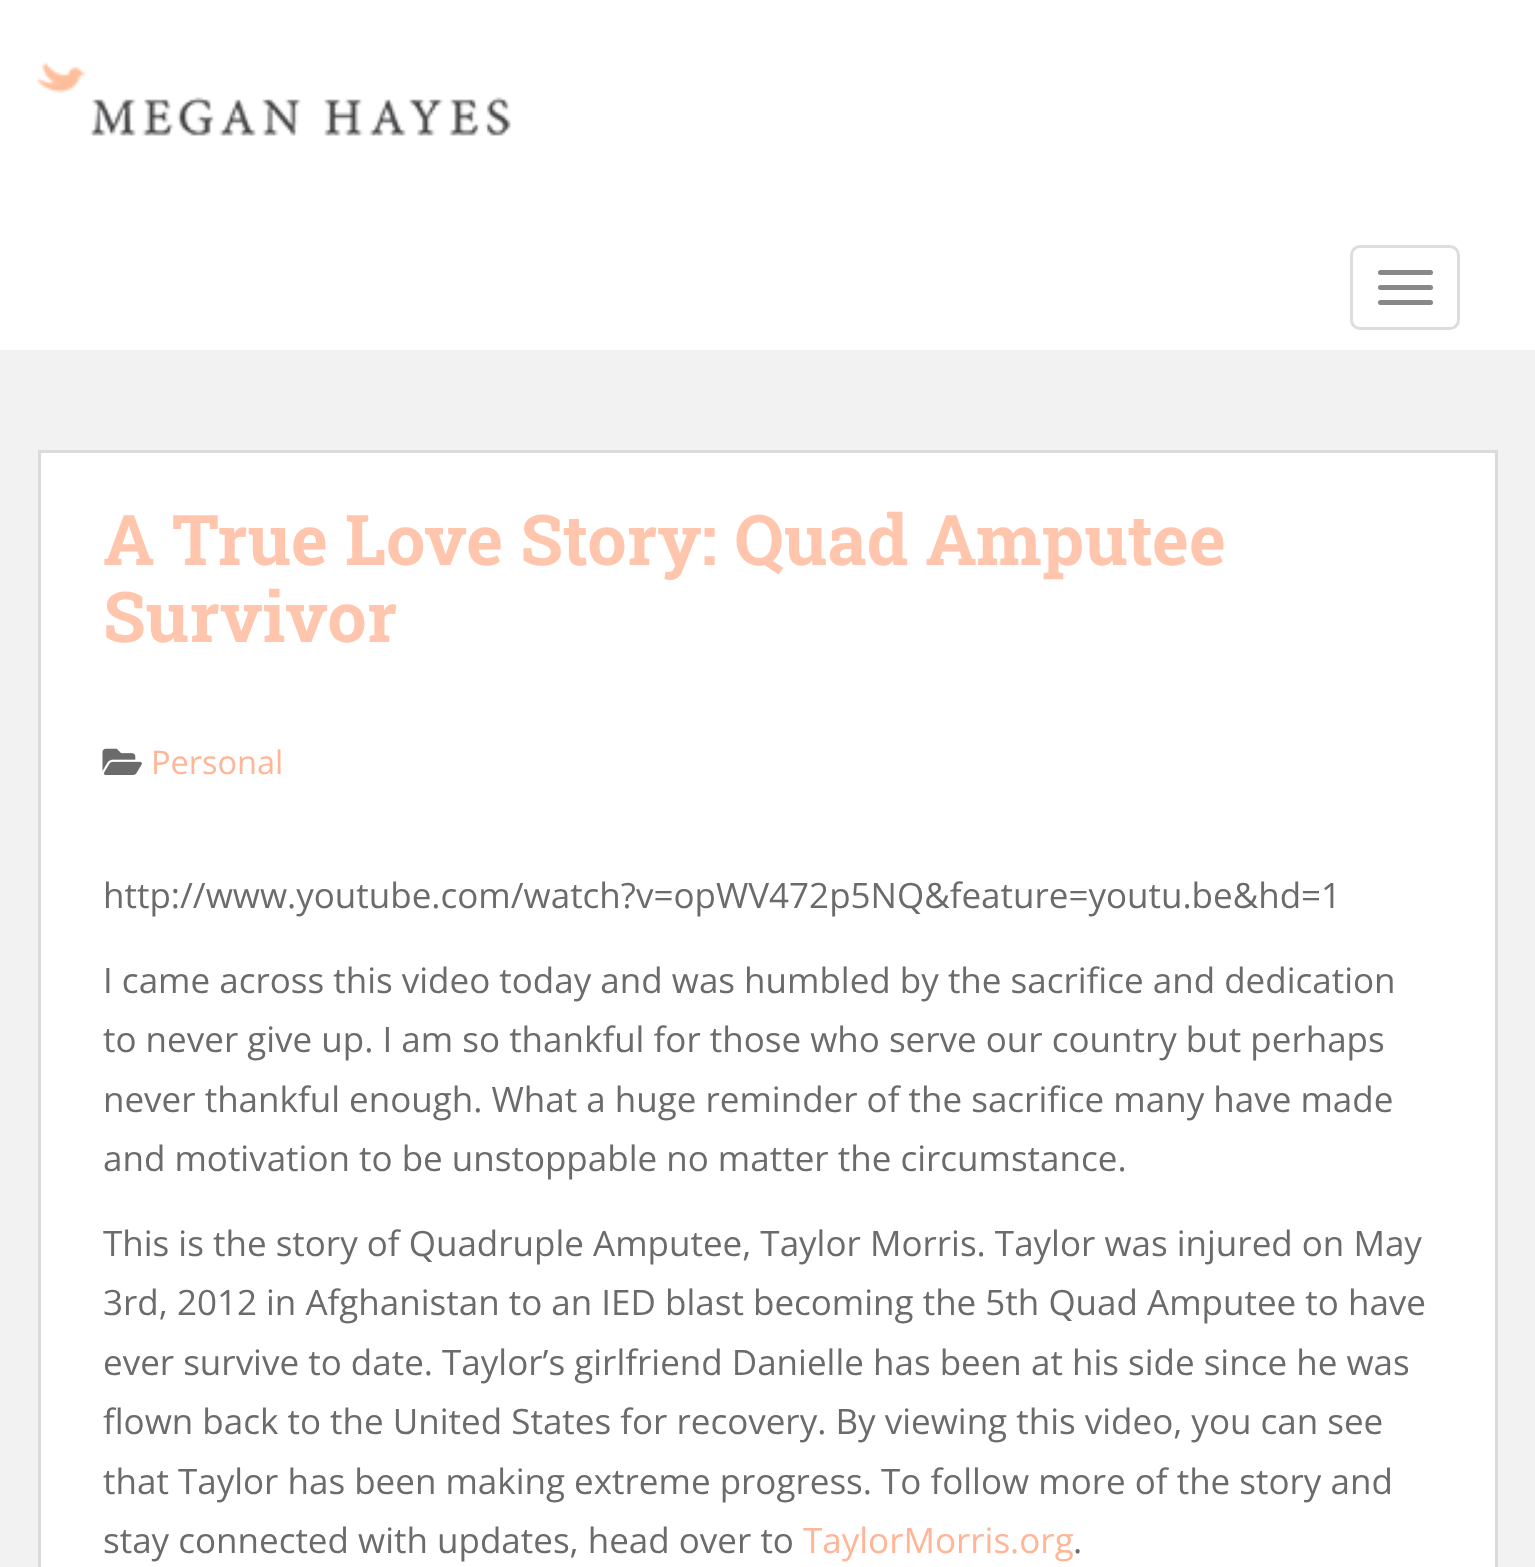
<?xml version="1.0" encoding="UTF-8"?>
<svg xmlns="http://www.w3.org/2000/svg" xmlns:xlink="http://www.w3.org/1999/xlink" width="1535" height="1567">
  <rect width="100%" height="100%" fill="#f2f2f2" />
  <rect width="1535" height="350" fill="#ffffff" />
  <image x="37" y="62" width="474" height="74" xlink:href="image1.png" />
  <rect x="1351.5" y="246.5" width="107" height="82" rx="8.5" fill="none" stroke="#dddddd" stroke-width="3" />
  <rect x="1378" y="270" width="55" height="5" rx="2.5" fill="#888888" />
  <rect x="1378" y="285" width="55" height="5" rx="2.5" fill="#888888" />
  <rect x="1378" y="300" width="55" height="5" rx="2.5" fill="#888888" />
  <rect x="39.5" y="451.5" width="1457" height="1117" fill="#ffffff" stroke="#dadada" stroke-width="3" />
  <image x="102" y="748" width="40" height="27" xlink:href="image2.png" />
  <text x="103" y="565" style="font-family: Roboto Slab; font-size: 70px; font-weight: bold; fill: #ffc5ad">A True Love Story: Quad Amputee</text>
  <text x="103" y="642" style="font-family: Roboto Slab; font-size: 70px; font-weight: bold; fill: #ffc5ad">Survivor</text>
  <text x="151" y="774" style="font-family: Open Sans; font-size: 32.5px; fill: #ffb596">Personal</text>
  <text x="103" y="908" style="font-family: Open Sans; font-size: 35px; fill: #6b6b6b">http://www.youtube.com/watch?v=opWV472p5NQ&amp;feature=youtu.be&amp;hd=1</text>
  <text x="103" y="993" style="font-family: Open Sans; font-size: 35px; fill: #6b6b6b">I came across this video today and was humbled by the sacrifice and dedication</text>
  <text x="103" y="1052" style="font-family: Open Sans; font-size: 35px; fill: #6b6b6b">to never give up. I am so thankful for those who serve our country but perhaps</text>
  <text x="103" y="1112" style="font-family: Open Sans; font-size: 35px; fill: #6b6b6b">never thankful enough. What a huge reminder of the sacrifice many have made</text>
  <text x="103" y="1171" style="font-family: Open Sans; font-size: 35px; fill: #6b6b6b">and motivation to be unstoppable no matter the circumstance.</text>
  <text x="103" y="1256" style="font-family: Open Sans; font-size: 35px; fill: #6b6b6b">This is the story of Quadruple Amputee, Taylor Morris. Taylor was injured on May</text>
  <text x="103" y="1315" style="font-family: Open Sans; font-size: 35px; fill: #6b6b6b">3rd, 2012 in Afghanistan to an IED blast becoming the 5th Quad Amputee to have</text>
  <text x="103" y="1375" style="font-family: Open Sans; font-size: 35px; fill: #6b6b6b">ever survive to date. Taylor’s girlfriend Danielle has been at his side since he was</text>
  <text x="103" y="1434" style="font-family: Open Sans; font-size: 35px; fill: #6b6b6b">flown back to the United States for recovery. By viewing this video, you can see</text>
  <text x="103" y="1494" style="font-family: Open Sans; font-size: 35px; fill: #6b6b6b">that Taylor has been making extreme progress. To follow more of the story and</text>
  <text x="103" y="1553" style="font-family: Open Sans; font-size: 35px; fill: #6b6b6b">stay connected with updates, head over to</text>
  <text x="803" y="1553" style="font-family: Open Sans; font-size: 35px; fill: #ffb596">TaylorMorris.org</text>
  <text x="1073" y="1553" style="font-family: Open Sans; font-size: 35px; fill: #6b6b6b">.</text>
</svg>
